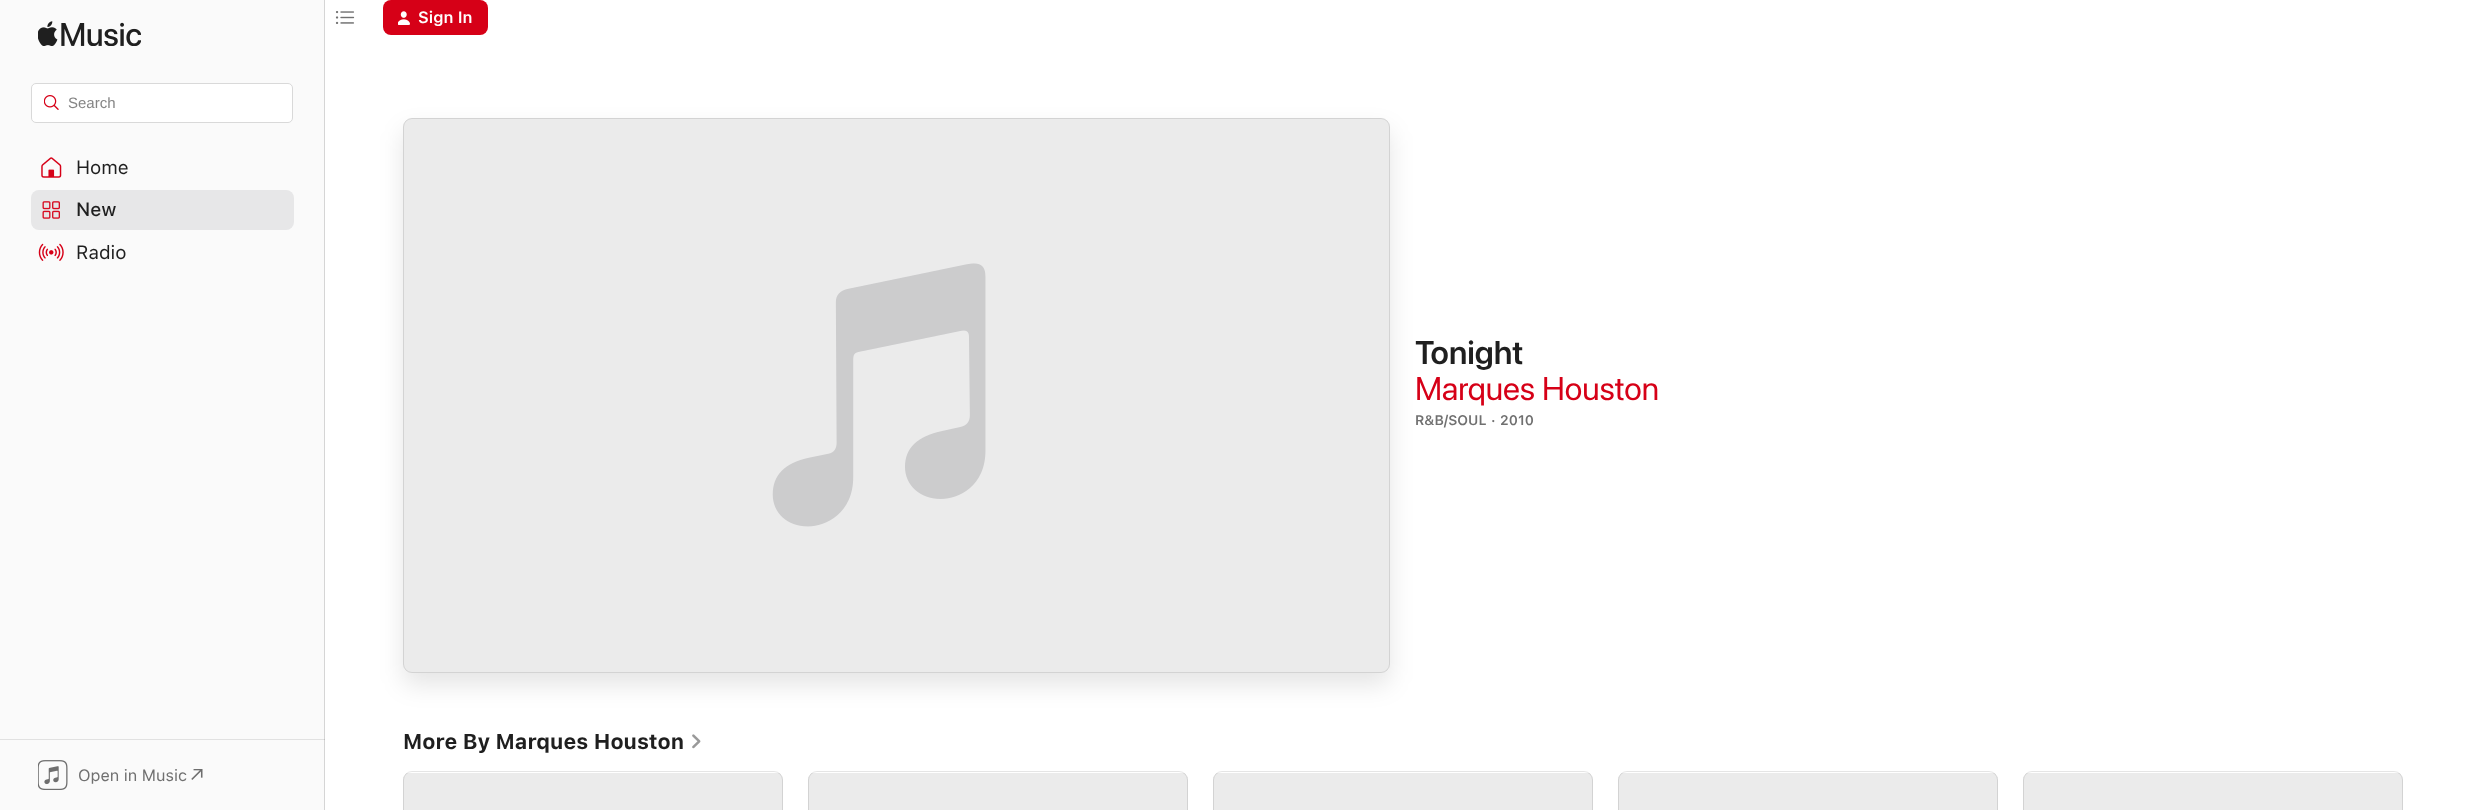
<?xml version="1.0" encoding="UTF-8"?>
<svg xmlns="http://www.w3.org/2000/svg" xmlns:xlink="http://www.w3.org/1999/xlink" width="2479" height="810">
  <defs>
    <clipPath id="clip1"><rect x="403" y="771" width="380" height="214" rx="9" /></clipPath>
    <clipPath id="clip2"><rect x="808" y="771" width="380" height="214" rx="9" /></clipPath>
    <clipPath id="clip3"><rect x="1213" y="771" width="380" height="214" rx="9" /></clipPath>
    <clipPath id="clip4"><rect x="1618" y="771" width="380" height="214" rx="9" /></clipPath>
    <clipPath id="clip5"><rect x="2023" y="771" width="380" height="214" rx="9" /></clipPath>
  </defs>
  <rect width="100%" height="100%" fill="#ffffff" />
  <image x="335" y="11" width="20" height="13" xlink:href="image1.png" />
  <rect x="383" width="105" height="35" rx="8" fill="#d60017" />
  <image x="398" y="11" width="12" height="14" xlink:href="image2.png" />
  <rect width="324" height="810" fill="#fafafa" />
  <rect y="739" width="325" height="1" fill="#e1e1e1" />
  <rect x="324" width="1" height="810" fill="#d5d5d5" />
  <rect x="324" y="739" width="1" height="1" fill="#c0c0c0" />
  <image x="38" y="21" width="103" height="25" xlink:href="image3.png" />
  <rect x="31.5" y="83.5" width="261" height="39" rx="4.5" fill="#ffffff" stroke="#d9d9d9" />
  <image x="44" y="95" width="15" height="15" xlink:href="image4.png" />
  <image x="41" y="157" width="21" height="21" xlink:href="image5.png" />
  <rect x="31" y="190" width="263" height="40" rx="8" fill="#e7e7e8" />
  <image x="42" y="201" width="18" height="18" xlink:href="image6.png" />
  <image x="38" y="243" width="26" height="18" xlink:href="image7.png" />
  <image x="38" y="760" width="30" height="30" xlink:href="image8.png" />
  <image x="191" y="769" width="12" height="11" xlink:href="image9.png" />
  <rect x="403" y="130" width="987" height="555" rx="9" fill="#000000" fill-opacity="0.1" filter="blur(12.5px)" />
  <rect x="403" y="118" width="987" height="555" rx="9" fill="#ebebeb" />
  <image x="772" y="263" width="214" height="264" xlink:href="image10.png" />
  <rect x="403.5" y="118.5" width="986" height="554" rx="8.5" fill="none" stroke="#000000" stroke-opacity="0.1" />
  <image x="692" y="734" width="9" height="15" xlink:href="image11.png" />
  <g clip-path="url(#clip1)">
    <rect x="403" y="773" width="380" height="37" fill="#ebebeb" />
  </g>
  <rect x="403" y="777" width="1" height="1" fill="#eeeeee" />
  <rect x="403.5" y="771.5" width="379" height="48" rx="8.5" fill="none" stroke="#000000" stroke-opacity="0.1" />
  <g clip-path="url(#clip2)">
    <rect x="808" y="773" width="380" height="37" fill="#ebebeb" />
  </g>
  <image x="808" y="777" width="380" height="1" xlink:href="image12.png" />
  <rect x="808.5" y="771.5" width="379" height="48" rx="8.5" fill="none" stroke="#000000" stroke-opacity="0.1" />
  <g clip-path="url(#clip3)">
    <rect x="1213" y="773" width="380" height="37" fill="#ebebeb" />
  </g>
  <rect x="1213" y="777" width="1" height="1" fill="#eeeeee" />
  <rect x="1213.5" y="771.5" width="379" height="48" rx="8.5" fill="none" stroke="#000000" stroke-opacity="0.1" />
  <g clip-path="url(#clip4)">
    <rect x="1618" y="773" width="380" height="37" fill="#ebebeb" />
  </g>
  <image x="1618" y="777" width="380" height="1" xlink:href="image12.png" />
  <rect x="1618.5" y="771.5" width="379" height="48" rx="8.5" fill="none" stroke="#000000" stroke-opacity="0.1" />
  <g clip-path="url(#clip5)">
    <rect x="2023" y="773" width="380" height="37" fill="#ebebeb" />
  </g>
  <rect x="2023" y="777" width="1" height="1" fill="#eeeeee" />
  <rect x="2023.5" y="771.5" width="379" height="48" rx="8.5" fill="none" stroke="#000000" stroke-opacity="0.1" />
  <text x="418" y="23" style="font-family: 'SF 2'; font-size: 16.25px; font-weight: 600; fill: #ffffff">Sign In</text>
  <text x="68" y="108" style="font-family: Liberation Sans; font-size: 15px; fill: #858585">Search</text>
  <text x="76" y="174" style="font-family: 'SF 2'; font-size: 19px; fill: #1f1f1f">Home</text>
  <text x="76" y="216" style="font-family: SF; font-size: 19px; font-weight: 500; fill: #1f1f1f">New</text>
  <text x="76" y="259" style="font-family: 'SF 2'; font-size: 19px; fill: #1f1f1f">Radio</text>
  <text x="78" y="781" style="font-family: 'SF 2'; font-size: 16.25px; fill: #707070">Open in Music</text>
  <text x="1415" y="364" style="font-family: SF; font-size: 32.5px; font-weight: 600; fill: #1f1f1f">Tonight</text>
  <text x="1415" y="400" style="font-family: SF; font-size: 32.5px; fill: #d60017">Marques Houston</text>
  <text x="1415" y="425" style="font-family: 'SF 2'; font-size: 13.75px; font-weight: 600; fill: #707070">R&amp;B/SOUL · 2010</text>
  <text x="403" y="749" style="font-family: SF; font-size: 21.25px; font-weight: bold; fill: #1f1f1f">More By Marques Houston</text>
</svg>
